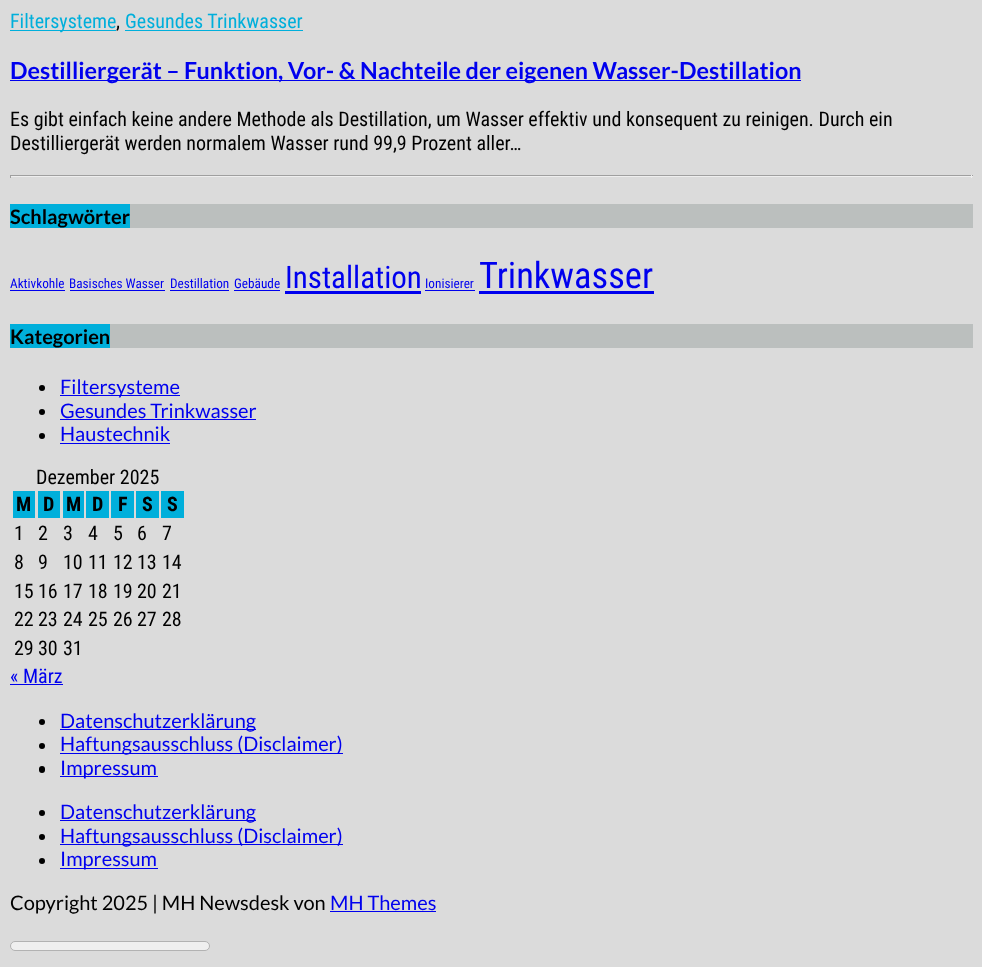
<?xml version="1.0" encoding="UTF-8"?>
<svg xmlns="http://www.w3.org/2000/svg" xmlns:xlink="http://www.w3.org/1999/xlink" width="982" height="967">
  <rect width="100%" height="100%" fill="#dbdbdb" />
  <rect x="10" y="30" width="106" height="1" fill="#00afdb" />
  <rect x="125" y="30" width="178" height="1" fill="#00afdb" />
  <rect x="10" y="80" width="791" height="1" fill="#0000ee" />
  <rect x="10" y="175" width="963" height="1" fill="#9f9f9f" />
  <rect x="971" y="175" width="1" height="3" fill="#eeeeee" />
  <rect x="10" y="176" width="963" height="1" fill="#eeeeee" />
  <rect x="10" y="175" width="1" height="3" fill="#9f9f9f" />
  <rect x="130" y="204" width="843" height="24" fill="#bbbfbe" />
  <rect x="10" y="204" width="120" height="24" fill="#00afdb" />
  <rect x="10" y="290" width="55" height="1" fill="#0000ee" />
  <rect x="70" y="290" width="95" height="1" fill="#0000ee" />
  <rect x="170" y="290" width="59" height="1" fill="#0000ee" />
  <rect x="234" y="290" width="46" height="1" fill="#0000ee" />
  <rect x="285" y="291" width="136" height="3" fill="#0000ee" />
  <rect x="425" y="290" width="50" height="1" fill="#0000ee" />
  <rect x="479" y="291" width="175" height="3" fill="#0000ee" />
  <rect x="110" y="324" width="863" height="24" fill="#bbbfbe" />
  <rect x="10" y="324" width="100" height="24" fill="#00afdb" />
  <circle cx="42" cy="388" r="3" fill="#000000" />
  <rect x="60" y="395" width="120" height="1" fill="#0000ee" />
  <circle cx="42" cy="412" r="3" fill="#000000" />
  <rect x="60" y="419" width="196" height="1" fill="#0000ee" />
  <circle cx="42" cy="436" r="3" fill="#000000" />
  <rect x="60" y="443" width="110" height="1" fill="#0000ee" />
  <rect x="13" y="491" width="22" height="27" fill="#00afdb" />
  <rect x="38" y="491" width="22" height="27" fill="#00afdb" />
  <rect x="63" y="491" width="21" height="27" fill="#00afdb" />
  <rect x="86" y="491" width="23" height="27" fill="#00afdb" />
  <rect x="111" y="491" width="23" height="27" fill="#00afdb" />
  <rect x="136" y="491" width="23" height="27" fill="#00afdb" />
  <rect x="161" y="491" width="23" height="27" fill="#00afdb" />
  <rect x="10" y="684" width="53" height="1" fill="#0000ee" />
  <circle cx="42" cy="722" r="3" fill="#000000" />
  <rect x="60" y="729" width="196" height="1" fill="#0000ee" />
  <circle cx="42" cy="746" r="3" fill="#000000" />
  <rect x="60" y="753" width="283" height="1" fill="#0000ee" />
  <rect x="39" y="766" width="6" height="7" rx="3" fill="#000000" />
  <rect x="60" y="776" width="98" height="1" fill="#0000ee" />
  <circle cx="42" cy="813" r="3" fill="#000000" />
  <rect x="60" y="820" width="196" height="1" fill="#0000ee" />
  <circle cx="42" cy="837" r="3" fill="#000000" />
  <rect x="60" y="844" width="283" height="1" fill="#0000ee" />
  <circle cx="42" cy="861" r="3" fill="#000000" />
  <rect x="60" y="868" width="98" height="1" fill="#0000ee" />
  <rect x="330" y="911" width="106" height="1" fill="#0000ee" />
  <rect x="10.5" y="941.5" width="199" height="9" rx="4.5" fill="#efefef" stroke="#b2b2b2" />
  <text x="10" y="28" style="font-family: Roboto Condensed; font-size: 20px; fill: #00afdb">Filtersysteme</text>
  <text x="116" y="28" style="font-family: Roboto Condensed; font-size: 20px; fill: #000000">,</text>
  <text x="125" y="28" style="font-family: Roboto Condensed; font-size: 20px; fill: #00afdb">Gesundes Trinkwasser</text>
  <text x="10" y="79" style="font-family: Lato; font-size: 23.4px; font-weight: bold; fill: #0000ee">Destilliergerät – Funktion, Vor- &amp; Nachteile der eigenen Wasser-Destillation</text>
  <text x="10" y="126" style="font-family: Roboto Condensed; font-size: 20px; fill: #000000">Es gibt einfach keine andere Methode als Destillation, um Wasser effektiv und konsequent zu reinigen. Durch ein</text>
  <text x="10" y="150" style="font-family: Roboto Condensed; font-size: 20px; fill: #000000">Destilliergerät werden normalem Wasser rund 99,9 Prozent aller…</text>
  <text x="10" y="224" style="font-family: Lato; font-size: 20px; font-weight: bold; fill: #000000">Schlagwörter</text>
  <text x="10" y="288" style="font-family: Roboto Condensed; font-size: 13.25px; fill: #0000ee">Aktivkohle</text>
  <text x="69" y="288" style="font-family: Roboto Condensed; font-size: 13.25px; fill: #0000ee">Basisches Wasser</text>
  <text x="170" y="288" style="font-family: Roboto Condensed; font-size: 13.25px; fill: #0000ee">Destillation</text>
  <text x="234" y="288" style="font-family: Roboto Condensed; font-size: 13.25px; fill: #0000ee">Gebäude</text>
  <text x="285" y="288" style="font-family: Roboto Condensed; font-size: 31px; fill: #0000ee">Installation</text>
  <text x="425" y="288" style="font-family: Roboto Condensed; font-size: 13.25px; fill: #0000ee">Ionisierer</text>
  <text x="479" y="288" style="font-family: Roboto Condensed; font-size: 36.5px; fill: #0000ee">Trinkwasser</text>
  <text x="10" y="344" style="font-family: Lato; font-size: 20px; font-weight: bold; fill: #000000">Kategorien</text>
  <text x="60" y="394" style="font-family: Lato; font-size: 20px; fill: #0000ee">Filtersysteme</text>
  <text x="60" y="418" style="font-family: Lato; font-size: 20px; fill: #0000ee">Gesundes Trinkwasser</text>
  <text x="60" y="441" style="font-family: Lato; font-size: 20px; fill: #0000ee">Haustechnik</text>
  <text x="36" y="484" style="font-family: Roboto Condensed; font-size: 20px; fill: #000000">Dezember 2025</text>
  <text x="16" y="511" style="font-family: Roboto Condensed; font-size: 20px; font-weight: bold; fill: #000000">M</text>
  <text x="43" y="511" style="font-family: Roboto Condensed; font-size: 20px; font-weight: bold; fill: #000000">D</text>
  <text x="66" y="511" style="font-family: Roboto Condensed; font-size: 20px; font-weight: bold; fill: #000000">M</text>
  <text x="92" y="511" style="font-family: Roboto Condensed; font-size: 20px; font-weight: bold; fill: #000000">D</text>
  <text x="118" y="511" style="font-family: Roboto Condensed; font-size: 20px; font-weight: bold; fill: #000000">F</text>
  <text x="142" y="511" style="font-family: Roboto Condensed; font-size: 20px; font-weight: bold; fill: #000000">S</text>
  <text x="167" y="511" style="font-family: Roboto Condensed; font-size: 20px; font-weight: bold; fill: #000000">S</text>
  <text x="14" y="540" style="font-family: Roboto Condensed; font-size: 20px; fill: #000000">1</text>
  <text x="38" y="540" style="font-family: Roboto Condensed; font-size: 20px; fill: #000000">2</text>
  <text x="63" y="540" style="font-family: Roboto Condensed; font-size: 20px; fill: #000000">3</text>
  <text x="88" y="540" style="font-family: Roboto Condensed; font-size: 20px; fill: #000000">4</text>
  <text x="113" y="540" style="font-family: Roboto Condensed; font-size: 20px; fill: #000000">5</text>
  <text x="137" y="540" style="font-family: Roboto Condensed; font-size: 20px; fill: #000000">6</text>
  <text x="162" y="540" style="font-family: Roboto Condensed; font-size: 20px; fill: #000000">7</text>
  <text x="14" y="569" style="font-family: Roboto Condensed; font-size: 20px; fill: #000000">8</text>
  <text x="38" y="569" style="font-family: Roboto Condensed; font-size: 20px; fill: #000000">9</text>
  <text x="63" y="569" style="font-family: Roboto Condensed; font-size: 20px; fill: #000000">10</text>
  <text x="88" y="569" style="font-family: Roboto Condensed; font-size: 20px; fill: #000000">11</text>
  <text x="113" y="569" style="font-family: Roboto Condensed; font-size: 20px; fill: #000000">12</text>
  <text x="137" y="569" style="font-family: Roboto Condensed; font-size: 20px; fill: #000000">13</text>
  <text x="162" y="569" style="font-family: Roboto Condensed; font-size: 20px; fill: #000000">14</text>
  <text x="14" y="598" style="font-family: Roboto Condensed; font-size: 20px; fill: #000000">15</text>
  <text x="38" y="598" style="font-family: Roboto Condensed; font-size: 20px; fill: #000000">16</text>
  <text x="63" y="598" style="font-family: Roboto Condensed; font-size: 20px; fill: #000000">17</text>
  <text x="88" y="598" style="font-family: Roboto Condensed; font-size: 20px; fill: #000000">18</text>
  <text x="113" y="598" style="font-family: Roboto Condensed; font-size: 20px; fill: #000000">19</text>
  <text x="137" y="598" style="font-family: Roboto Condensed; font-size: 20px; fill: #000000">20</text>
  <text x="162" y="598" style="font-family: Roboto Condensed; font-size: 20px; fill: #000000">21</text>
  <text x="14" y="626" style="font-family: Roboto Condensed; font-size: 20px; fill: #000000">22</text>
  <text x="38" y="626" style="font-family: Roboto Condensed; font-size: 20px; fill: #000000">23</text>
  <text x="63" y="626" style="font-family: Roboto Condensed; font-size: 20px; fill: #000000">24</text>
  <text x="88" y="626" style="font-family: Roboto Condensed; font-size: 20px; fill: #000000">25</text>
  <text x="113" y="626" style="font-family: Roboto Condensed; font-size: 20px; fill: #000000">26</text>
  <text x="137" y="626" style="font-family: Roboto Condensed; font-size: 20px; fill: #000000">27</text>
  <text x="162" y="626" style="font-family: Roboto Condensed; font-size: 20px; fill: #000000">28</text>
  <text x="14" y="655" style="font-family: Roboto Condensed; font-size: 20px; fill: #000000">29</text>
  <text x="38" y="655" style="font-family: Roboto Condensed; font-size: 20px; fill: #000000">30</text>
  <text x="63" y="655" style="font-family: Roboto Condensed; font-size: 20px; fill: #000000">31</text>
  <text x="10" y="683" style="font-family: Roboto Condensed; font-size: 20px; fill: #0000ee">« März</text>
  <text x="60" y="728" style="font-family: Lato; font-size: 20px; fill: #0000ee">Datenschutzerklärung</text>
  <text x="60" y="751" style="font-family: Lato; font-size: 20px; fill: #0000ee">Haftungsausschluss (Disclaimer)</text>
  <text x="60" y="775" style="font-family: Lato; font-size: 20px; fill: #0000ee">Impressum</text>
  <text x="60" y="819" style="font-family: Lato; font-size: 20px; fill: #0000ee">Datenschutzerklärung</text>
  <text x="60" y="843" style="font-family: Lato; font-size: 20px; fill: #0000ee">Haftungsausschluss (Disclaimer)</text>
  <text x="60" y="866" style="font-family: Lato; font-size: 20px; fill: #0000ee">Impressum</text>
  <text x="10" y="910" style="font-family: Lato; font-size: 20px; fill: #000000">Copyright 2025 | MH Newsdesk von</text>
  <text x="330" y="910" style="font-family: Lato; font-size: 20px; fill: #0000ee">MH Themes</text>
</svg>
